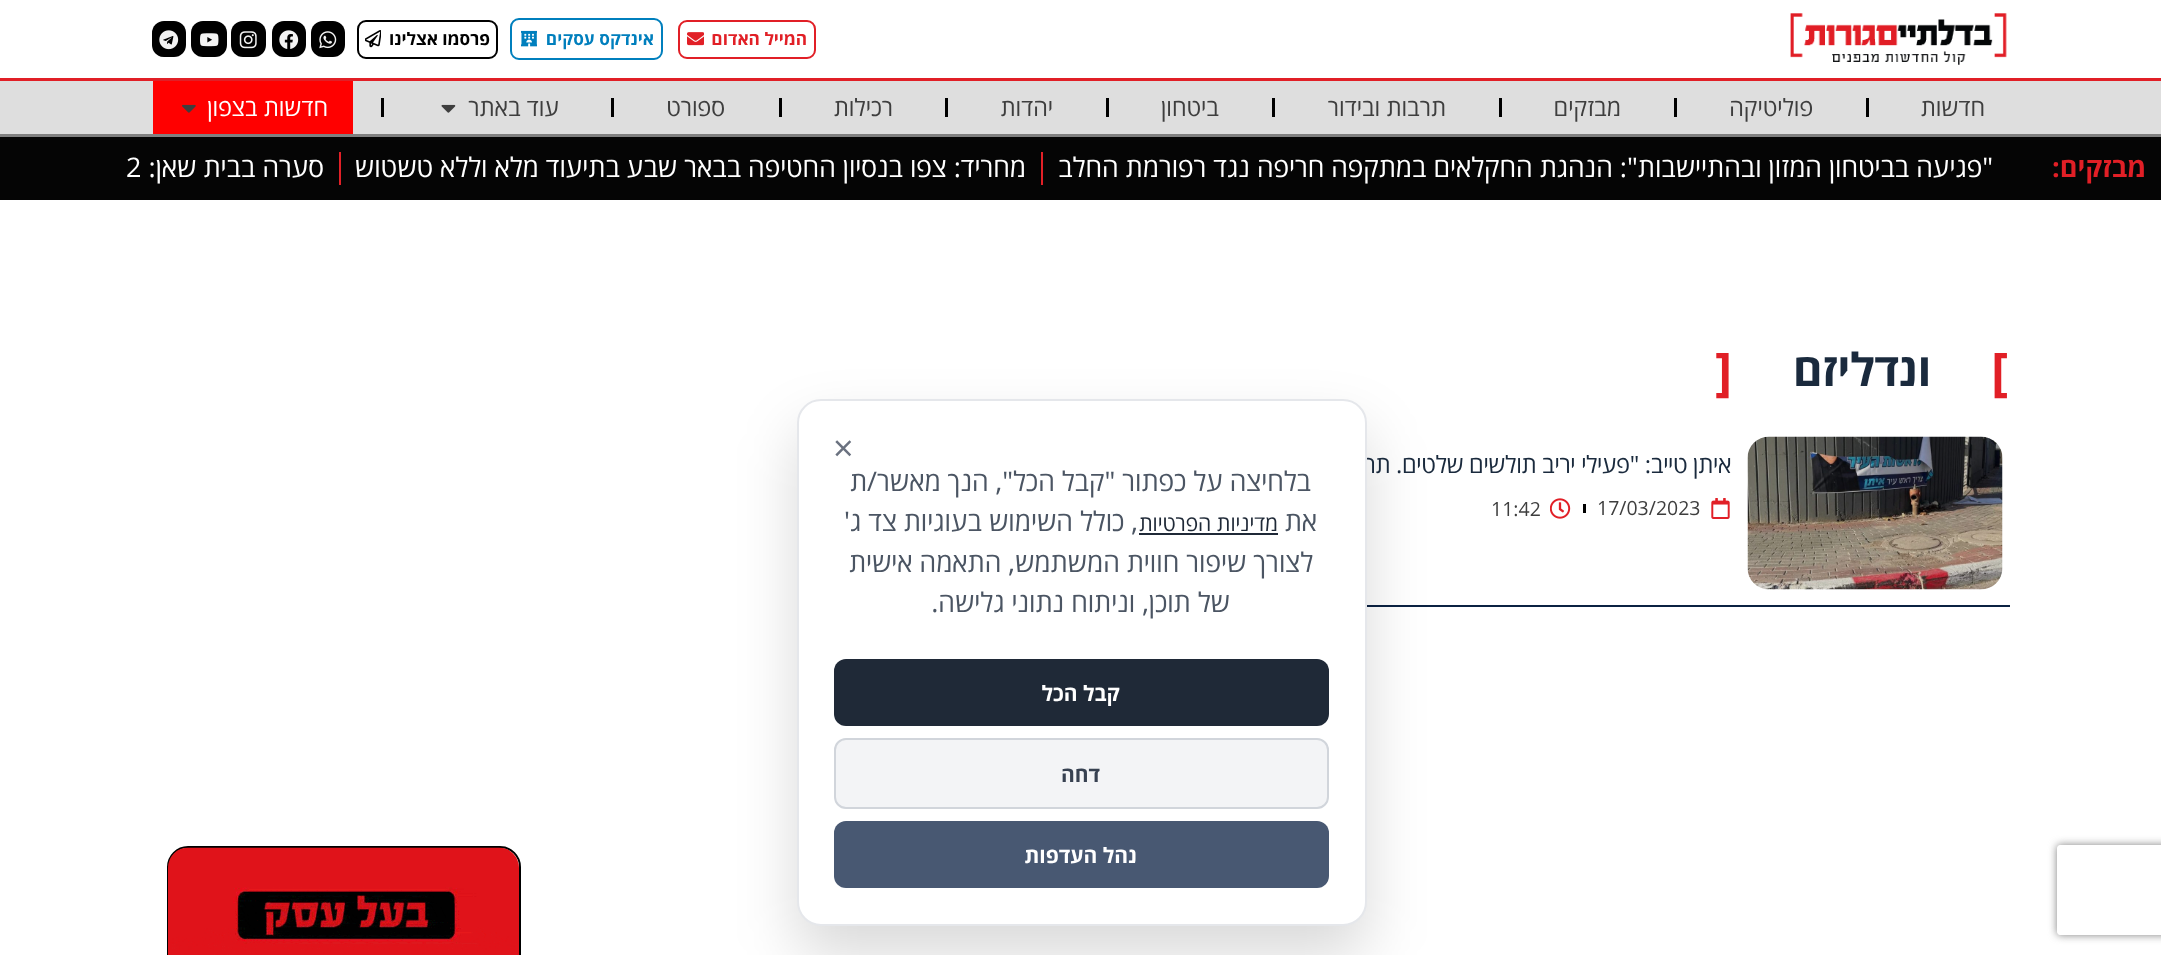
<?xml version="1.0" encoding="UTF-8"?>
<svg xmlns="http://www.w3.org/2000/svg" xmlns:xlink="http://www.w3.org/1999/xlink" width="2161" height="955">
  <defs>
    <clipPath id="clip1"><path d="M 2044 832 h 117 v 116 h -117 z m 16 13 h 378 c 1.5 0 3 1.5 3 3 v 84 c 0 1.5 -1.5 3 -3 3 h -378 c -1.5 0 -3 -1.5 -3 -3 v -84 c 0 -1.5 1.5 -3 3 -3 z" clip-rule="evenodd" /></clipPath>
  </defs>
  <rect width="100%" height="100%" fill="#ffffff" />
  <rect y="78" width="2161" height="3" fill="#e11f26" />
  <image x="1790" y="13" width="217" height="52" xlink:href="image1.png" />
  <rect x="679" y="21" width="136" height="37" rx="8" fill="none" stroke="#e11f26" stroke-width="2" />
  <image x="687" y="32" width="17" height="14" xlink:href="image2.png" />
  <rect x="511" y="19" width="151" height="40" rx="8" fill="none" stroke="#007fbd" stroke-width="2" />
  <image x="521" y="30" width="16" height="17" xlink:href="image3.png" />
  <rect x="358" y="21" width="139" height="37" rx="8" fill="none" stroke="#000000" stroke-width="2" />
  <image x="365" y="30" width="16" height="18" xlink:href="image4.png" />
  <rect x="311" y="21" width="34" height="36" rx="12" fill="#000000" />
  <image x="319" y="31" width="18" height="18" xlink:href="image5.png" />
  <rect x="272" y="21" width="34" height="36" rx="12" fill="#000000" />
  <image x="279" y="30" width="20" height="19" xlink:href="image6.png" />
  <rect x="231" y="21" width="35" height="36" rx="12" fill="#000000" />
  <image x="239" y="31" width="18" height="18" xlink:href="image7.png" />
  <rect x="191" y="21" width="36" height="36" rx="12" fill="#000000" />
  <image x="200" y="33" width="19" height="14" xlink:href="image8.png" />
  <rect x="152" y="21" width="34" height="36" rx="12" fill="#000000" />
  <image x="159" y="30" width="20" height="20" xlink:href="image9.png" />
  <rect y="81" width="2161" height="53" fill="#dedede" />
  <rect y="134" width="2161" height="3" fill="#808080" />
  <rect x="1866" y="98" width="3" height="19" fill="#000000" />
  <rect x="1674" y="98" width="3" height="19" fill="#000000" />
  <rect x="1499" y="98" width="3" height="19" fill="#000000" />
  <rect x="1272" y="98" width="3" height="19" fill="#000000" />
  <rect x="1106" y="98" width="3" height="19" fill="#000000" />
  <rect x="945" y="98" width="3" height="19" fill="#000000" />
  <rect x="779" y="98" width="3" height="19" fill="#000000" />
  <rect x="611" y="98" width="3" height="19" fill="#000000" />
  <image x="441" y="104" width="15" height="9" xlink:href="image10.png" />
  <rect x="381" y="98" width="3" height="19" fill="#000000" />
  <rect x="153" y="81" width="200" height="53" fill="#ff0000" />
  <image x="182" y="104" width="14" height="9" xlink:href="image11.png" />
  <rect y="137" width="2161" height="63" fill="#050505" />
  <rect x="1041" y="152" width="2" height="33" fill="#e22027" />
  <rect x="339" y="152" width="2" height="33" fill="#e22027" />
  <rect x="1367" y="605" width="643" height="2" fill="#0b2242" />
  <image x="1747" y="436" width="256" height="154" xlink:href="image12.png" />
  <image x="1711" y="498" width="19" height="21" xlink:href="image13.png" />
  <rect x="1583" y="504" width="3" height="9" fill="#000000" />
  <image x="1550" y="498" width="21" height="21" xlink:href="image14.png" />
  <rect x="168" y="847" width="352" height="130" rx="20" fill="none" stroke="#000000" stroke-width="2" />
  <image x="168" y="847" width="351" height="108" xlink:href="image15.png" />
  <rect x="797" y="429" width="570" height="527" rx="24" fill="#000000" fill-opacity="0.15" filter="blur(30px)" />
  <g clip-path="url(#clip1)">
    <rect x="2057" y="845" width="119" height="90" rx="3" fill="#808080" filter="blur(4px)" />
  </g>
  <text x="807" y="45" style="font-family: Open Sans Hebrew; font-size: 17.25px; font-weight: bold; direction: rtl; fill: #e11f26">המייל האדום</text>
  <text x="654" y="45" style="font-family: Open Sans Hebrew; font-size: 17.25px; font-weight: bold; direction: rtl; fill: #007fbd">אינדקס עסקים</text>
  <text x="490" y="45" style="font-family: Open Sans Hebrew; font-size: 17.25px; font-weight: bold; direction: rtl; fill: #000000">פרסמו אצלינו</text>
  <text x="1985" y="116" style="font-family: Open Sans Hebrew; font-size: 23.75px; direction: rtl; fill: #3e3e3e">חדשות</text>
  <text x="1813" y="116" style="font-family: Open Sans Hebrew; font-size: 23.75px; direction: rtl; fill: #3e3e3e">פוליטיקה</text>
  <text x="1621" y="116" style="font-family: Open Sans Hebrew; font-size: 23.75px; direction: rtl; fill: #3e3e3e">מבזקים</text>
  <text x="1446" y="116" style="font-family: Open Sans Hebrew; font-size: 23.75px; direction: rtl; fill: #3e3e3e">תרבות ובידור</text>
  <text x="1219" y="116" style="font-family: Open Sans Hebrew; font-size: 23.75px; direction: rtl; fill: #3e3e3e">ביטחון</text>
  <text x="1053" y="116" style="font-family: Open Sans Hebrew; font-size: 23.75px; direction: rtl; fill: #3e3e3e">יהדות</text>
  <text x="893" y="116" style="font-family: Open Sans Hebrew; font-size: 23.75px; direction: rtl; fill: #3e3e3e">רכילות</text>
  <text x="725" y="116" style="font-family: Open Sans Hebrew; font-size: 23.75px; direction: rtl; fill: #3e3e3e">ספורט</text>
  <text x="559" y="116" style="font-family: Open Sans Hebrew; font-size: 23.75px; direction: rtl; fill: #3e3e3e">עוד באתר</text>
  <text x="328" y="116" style="font-family: Open Sans Hebrew; font-size: 23.75px; direction: rtl; fill: #ffffff">חדשות בצפון</text>
  <text x="2146" y="177" style="font-family: Open Sans Hebrew; font-size: 27px; font-weight: bold; direction: rtl; fill: #e11f26">מבזקים:</text>
  <text x="1993" y="177" style="font-family: Open Sans Hebrew; font-size: 27px; direction: rtl; fill: #ffffff">"פגיעה בביטחון המזון ובהתיישבות": הנהגת החקלאים במתקפה חריפה נגד רפורמת החלב</text>
  <text x="1026" y="177" style="font-family: Open Sans Hebrew; font-size: 27px; direction: rtl; fill: #ffffff">מחריד: צפו בנסיון החטיפה בבאר שבע בתיעוד מלא וללא טשטוש</text>
  <text x="324" y="177" style="font-family: Open Sans Hebrew; font-size: 27px; direction: rtl; fill: #ffffff">סערה בבית שאן:</text>
  <text x="126" y="177" style="font-family: Open Sans Hebrew; font-size: 27px; fill: #ffffff">2</text>
  <text x="1991" y="390" style="font-family: Open Sans Hebrew; font-size: 52px; font-weight: bold; letter-spacing: 2px; fill: #e11f26">[</text>
  <text x="1931" y="386" style="font-family: Open Sans Hebrew; font-size: 45.5px; font-weight: bold; letter-spacing: -0.5px; direction: rtl; fill: #1a2a3d">ונדליזם</text>
  <text x="1715" y="390" style="font-family: Open Sans Hebrew; font-size: 52px; font-weight: bold; letter-spacing: 2px; fill: #e11f26">]</text>
  <text x="1731" y="473" style="font-family: Open Sans Hebrew; font-size: 23.75px; letter-spacing: -0.3px; direction: rtl; fill: #1a2a3d">איתן טייב: "פעילי יריב תולשים שלטים. תתבישו"</text>
  <text x="1597" y="515" style="font-family: Open Sans Hebrew; font-size: 19.5px; fill: #3e3e3e">17/03/2023</text>
  <text x="1491" y="516" style="font-family: Open Sans Hebrew; font-size: 19.5px; fill: #3e3e3e">11:42</text>
  <rect x="798" y="400" width="568" height="525" rx="23" fill="#ffffff" stroke="#e5e7eb" stroke-width="2" />
  <text x="833" y="461" style="font-family: Open Sans Hebrew; font-size: 36px; fill: #6b7280">×</text>
  <text x="1311" y="491" style="font-family: Open Sans Hebrew; font-size: 27px; direction: rtl; fill: #4b5563">בלחיצה על כפתור "קבל הכל", הנך מאשר/ת</text>
  <text x="1317" y="531" style="font-family: Open Sans Hebrew; font-size: 27px; direction: rtl; fill: #4b5563">את</text>
  <text x="1278" y="531" style="font-family: Open Sans Hebrew; font-size: 21.5px; direction: rtl; fill: #1f2937">מדיניות הפרטיות</text>
  <rect x="1139" y="533" width="139" height="2" fill="#1f2937" />
  <text x="1138" y="531" style="font-family: Open Sans Hebrew; font-size: 27px; direction: rtl; fill: #4b5563">, כולל השימוש בעוגיות צד ג'</text>
  <text x="1313" y="572" style="font-family: Open Sans Hebrew; font-size: 27px; direction: rtl; fill: #4b5563">לצורך שיפור חווית המשתמש, התאמה אישית</text>
  <text x="1230" y="612" style="font-family: Open Sans Hebrew; font-size: 27px; direction: rtl; fill: #4b5563">של תוכן, וניתוח נתוני גלישה.</text>
  <rect x="834" y="659" width="495" height="67" rx="12" fill="#1f2937" />
  <text x="1120" y="701" style="font-family: Open Sans Hebrew; font-size: 21px; font-weight: bold; direction: rtl; fill: #ffffff">קבל הכל</text>
  <rect x="835" y="739" width="493" height="69" rx="11" fill="#f3f4f6" stroke="#d1d5db" stroke-width="2" />
  <text x="1100" y="782" style="font-family: Open Sans Hebrew; font-size: 21px; font-weight: bold; direction: rtl; fill: #374151">דחה</text>
  <rect x="834" y="821" width="495" height="67" rx="12" fill="#485872" />
  <text x="1137" y="863" style="font-family: Open Sans Hebrew; font-size: 21px; font-weight: bold; direction: rtl; fill: #ffffff">נהל העדפות</text>
</svg>
